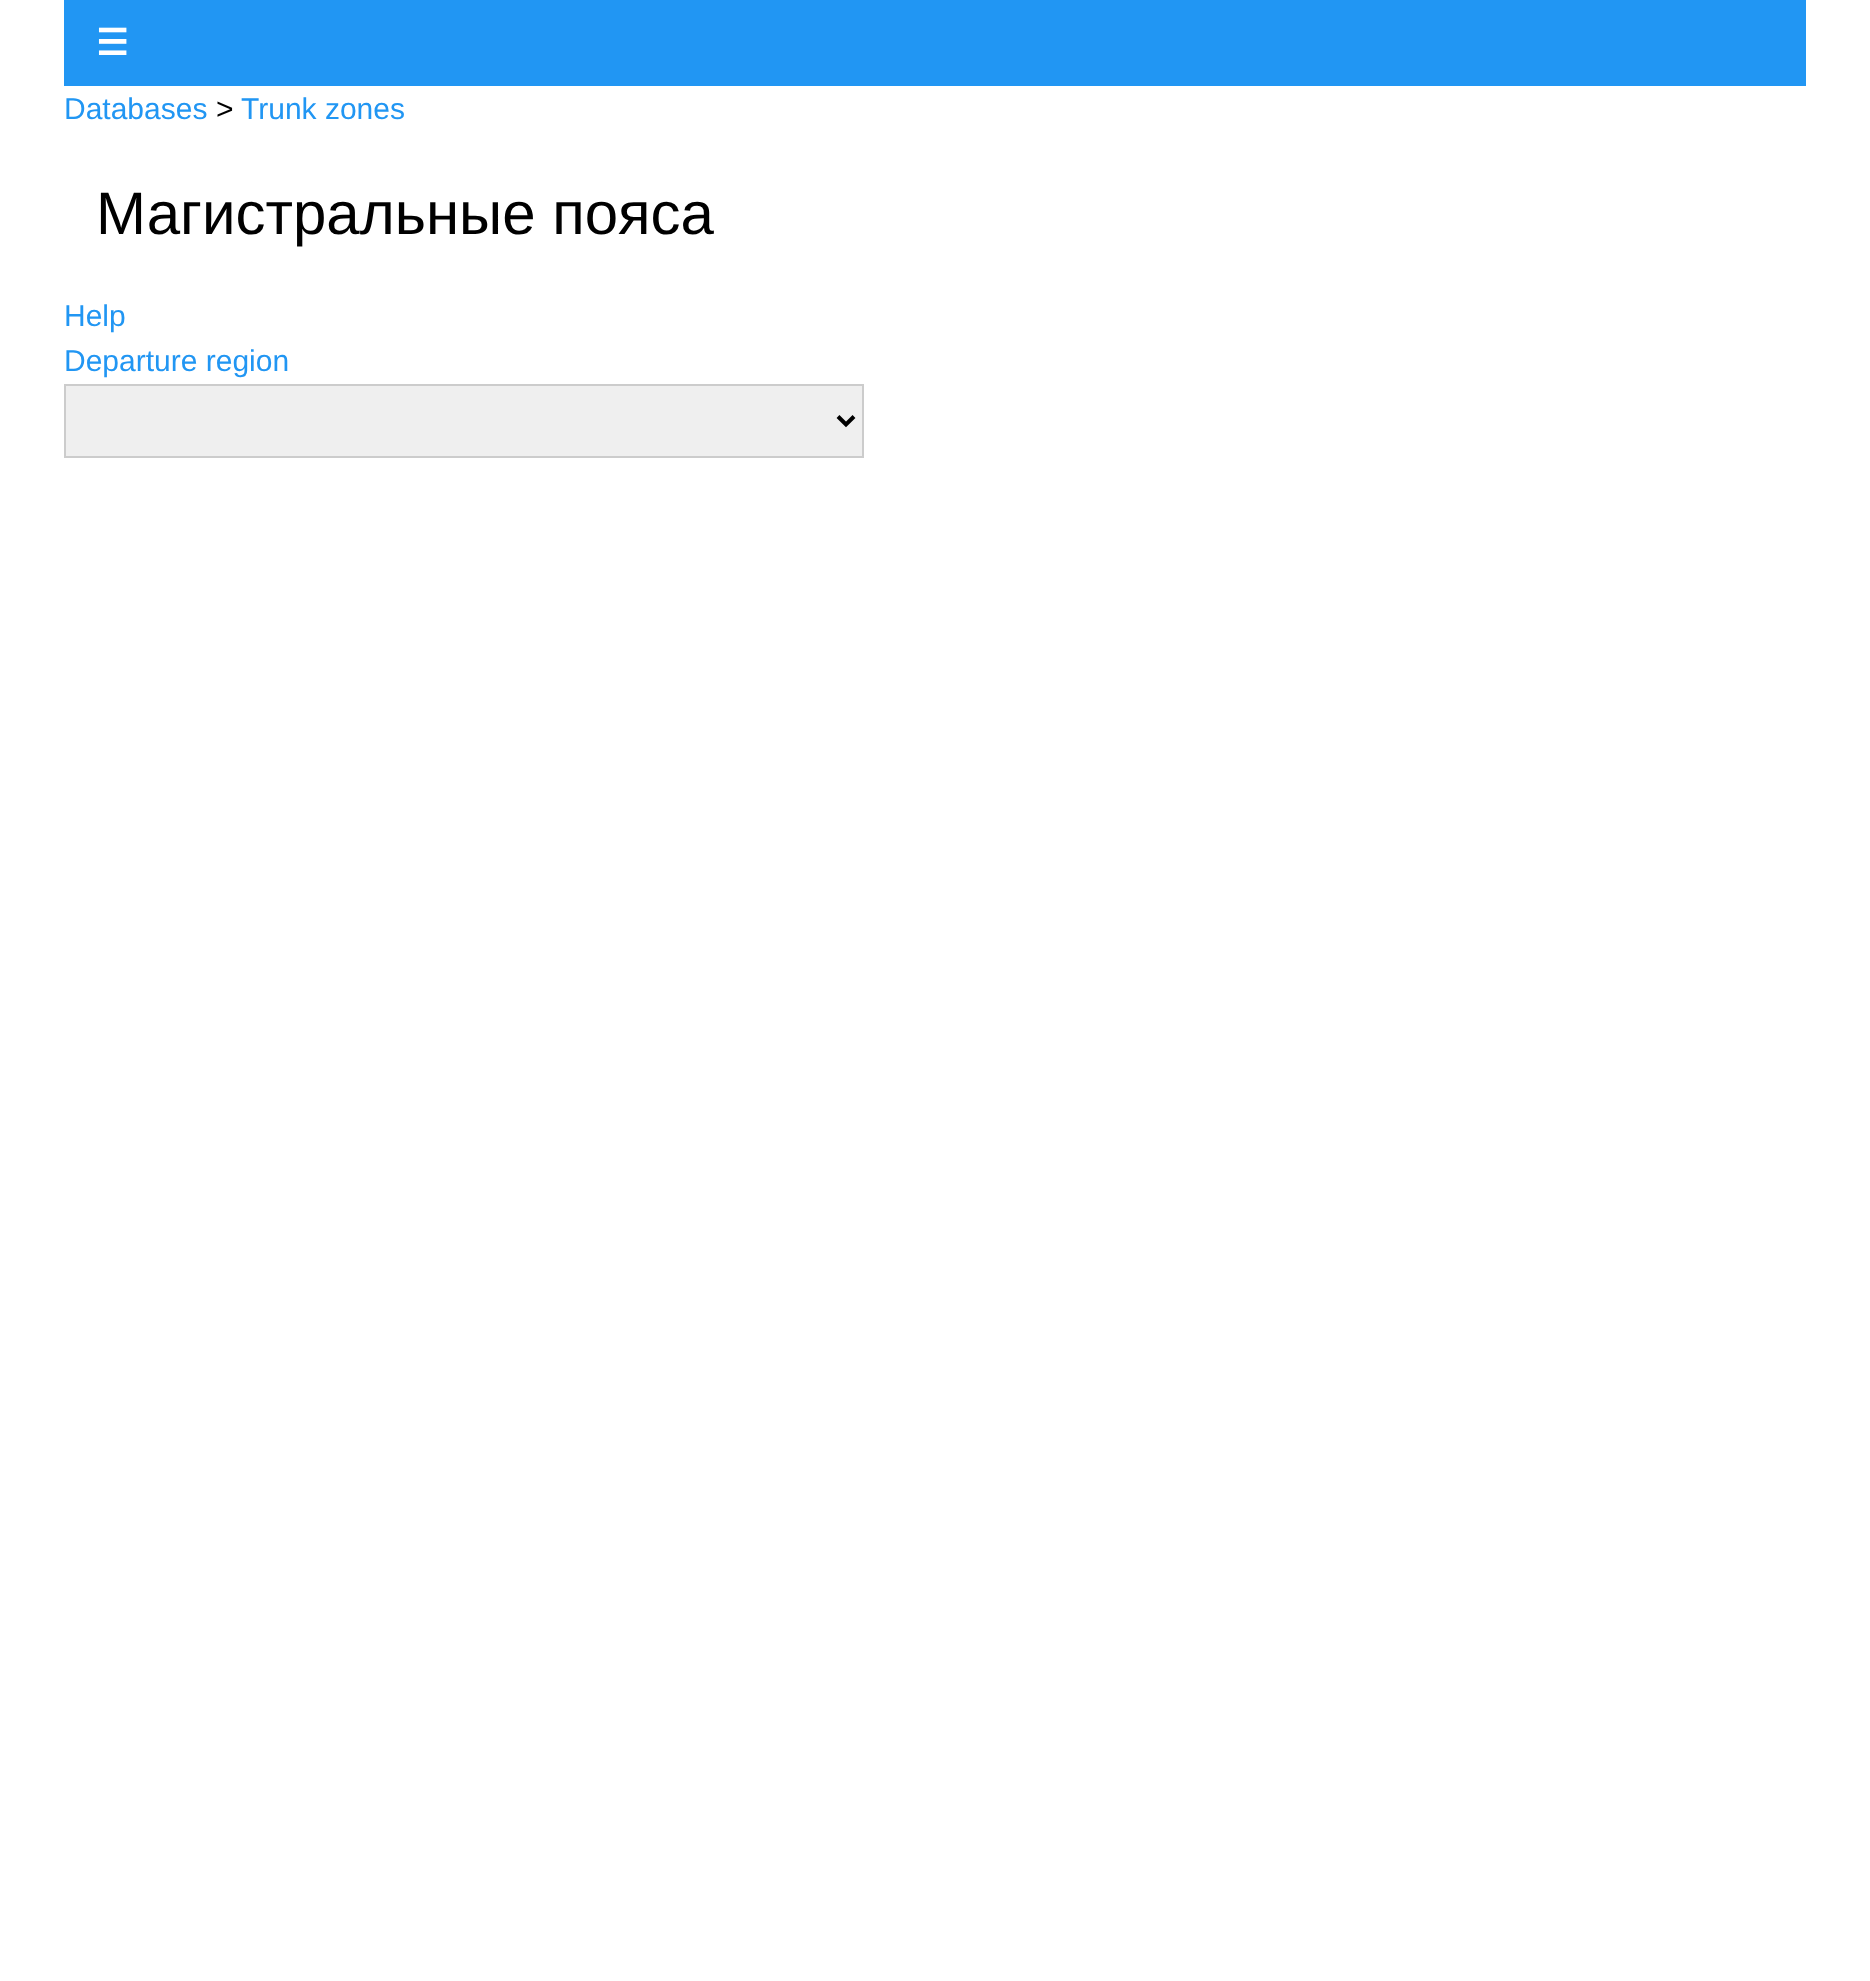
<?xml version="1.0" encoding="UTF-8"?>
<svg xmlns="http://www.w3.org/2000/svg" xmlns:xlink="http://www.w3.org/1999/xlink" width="1870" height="1981">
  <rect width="100%" height="100%" fill="#ffffff" />
  <rect x="64" width="1742" height="86" fill="#2196f3" />
  <rect x="65" y="385" width="798" height="72" fill="#efefef" stroke="#cccccc" stroke-width="2" />
  <path d="M 838 416.5 l 8 8 l 8 -8" fill="none" stroke="#000000" stroke-width="4" />
  <text x="96" y="55" style="font-family: DejaVu Sans; font-size: 36px; font-weight: bold; fill: #ffffff">☰</text>
  <text x="64" y="119" style="font-family: Liberation Sans; font-size: 30px; fill: #2196f3">Databases</text>
  <text x="216" y="119" style="font-family: Liberation Sans; font-size: 30px; fill: #000000">&gt;</text>
  <text x="241" y="119" style="font-family: Liberation Sans; font-size: 30px; fill: #2196f3">Trunk zones</text>
  <text x="96" y="234" style="font-family: Liberation Sans; font-size: 60px; fill: #000000">Магистральные пояса</text>
  <text x="64" y="326" style="font-family: Liberation Sans; font-size: 30px; fill: #2196f3">Help</text>
  <text x="64" y="371" style="font-family: Liberation Sans; font-size: 30px; fill: #2196f3">Departure region</text>
</svg>
